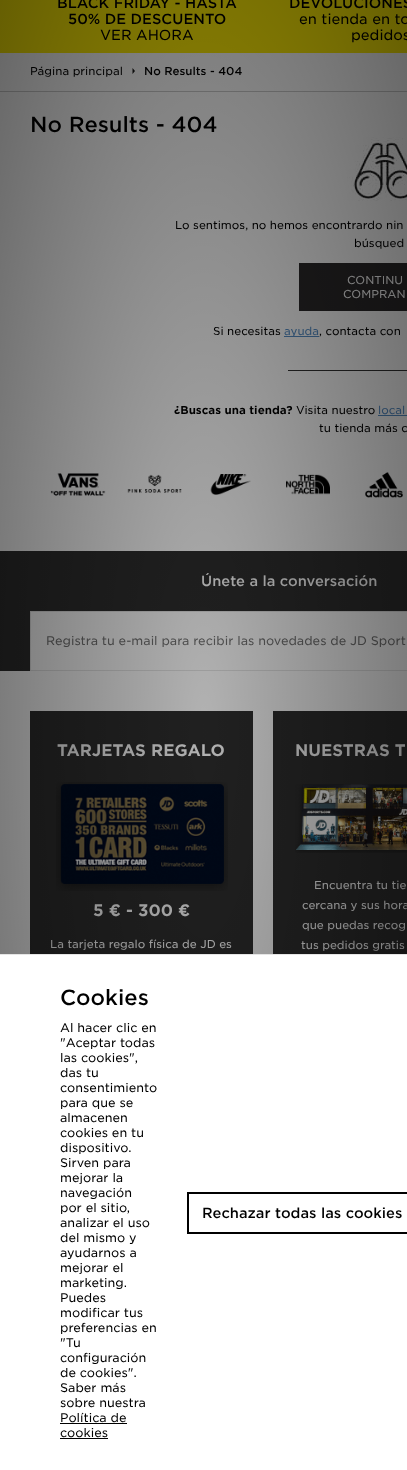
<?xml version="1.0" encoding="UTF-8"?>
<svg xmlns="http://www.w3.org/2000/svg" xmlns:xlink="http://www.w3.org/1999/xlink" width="407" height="1470">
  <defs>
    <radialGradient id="g1" gradientUnits="userSpaceOnUse" cx="0" cy="0" r="1" gradientTransform="matrix(288 0 0 1039 204 735)"><stop offset="0" stop-color="#000000" stop-opacity="0.3" /><stop offset="1" stop-color="#000000" stop-opacity="0.6" /></radialGradient>
  </defs>
  <rect width="100%" height="100%" fill="#ffffff" />
  <rect width="407" height="53" fill="#ffed06" />
  <rect y="91" width="407" height="1" fill="#cccccc" />
  <path d="M 132.5 68 l 2.5 3 h -2.5 z m 2.5 3 l -2.5 3 v -3 z" fill="#1a1a1a" />
  <image x="347" y="137" width="60" height="64" xlink:href="image1.png" />
  <rect x="299" y="263" width="108" height="48" fill="#2b292a" />
  <rect x="284" y="336" width="35" height="1" fill="#568ec7" />
  <rect x="288" y="370" width="119" height="1" fill="#333333" />
  <rect x="378" y="415" width="29" height="1" fill="#568ec7" />
  <image x="50" y="473" width="56" height="23" xlink:href="image2.png" />
  <image x="127" y="474" width="55" height="19" xlink:href="image3.png" />
  <image x="210" y="474" width="41" height="21" xlink:href="image4.png" />
  <image x="286" y="474" width="44" height="21" xlink:href="image5.png" />
  <image x="365" y="472" width="38" height="26" xlink:href="image6.png" />
  <rect y="551" width="407" height="120" fill="#2e2e2e" />
  <rect x="30.5" y="611.5" width="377" height="59" fill="#ffffff" stroke="#e5e5e5" />
  <rect x="30" y="711" width="223" height="243" fill="#2e2e2e" />
  <image x="56" y="782" width="172" height="109" xlink:href="image7.png" />
  <rect x="273" y="711" width="134" height="243" fill="#2e2e2e" />
  <image x="295" y="784" width="112" height="69" xlink:href="image8.png" />
  <rect y="954" width="407" height="1" fill="#e5e5e5" />
  <rect x="60" y="1423" width="67" height="1" fill="#000000" />
  <rect x="60" y="1438" width="48" height="1" fill="#000000" />
  <rect x="188" y="1193" width="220" height="40" fill="none" stroke="#000000" stroke-width="2" />
  <text x="57" y="8" style="font-family: 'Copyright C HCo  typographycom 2'; font-size: 14px; font-weight: 300; fill: #000000">BLACK FRIDAY - HASTA</text>
  <text x="68" y="24" style="font-family: 'Copyright C HCo  typographycom 2'; font-size: 14px; font-weight: 300; fill: #000000">50% DE DESCUENTO</text>
  <text x="100" y="40" style="font-family: 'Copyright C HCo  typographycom'; font-size: 14px; font-weight: 300; fill: #000000">VER AHORA</text>
  <text x="289" y="8" style="font-family: 'Copyright C HCo  typographycom 2'; font-size: 14px; font-weight: 300; fill: #000000">DEVOLUCIONES</text>
  <text x="299" y="24" style="font-family: 'Copyright C HCo  typographycom'; font-size: 14px; font-weight: 300; fill: #000000">en tienda en to</text>
  <text x="351" y="40" style="font-family: 'Copyright C HCo  typographycom'; font-size: 14px; font-weight: 300; fill: #000000">pedidos</text>
  <text x="30" y="75" style="font-family: 'Copyright C HCo  typographycom'; font-size: 11px; font-weight: 300; fill: #000000">Página principal</text>
  <text x="144" y="75" style="font-family: 'Copyright C HCo  typographycom 2'; font-size: 11px; font-weight: 300; fill: #000000">No Results - 404</text>
  <text x="30" y="132" style="font-family: 'Copyright C HCo  typographycom 2'; font-size: 21px; font-weight: 300; fill: #000000">No Results - 404</text>
  <text x="175" y="229" style="font-family: 'Copyright C HCo  typographycom'; font-size: 11px; font-weight: 300; fill: #000000">Lo sentimos, no hemos encontrardo nin</text>
  <text x="354" y="247" style="font-family: 'Copyright C HCo  typographycom'; font-size: 11px; font-weight: 300; fill: #000000">búsqued</text>
  <text x="347" y="284" style="font-family: 'Copyright C HCo  typographycom'; font-size: 11px; font-weight: 300; fill: #ffffff">CONTINU</text>
  <text x="343" y="298" style="font-family: 'Copyright C HCo  typographycom'; font-size: 11px; font-weight: 300; fill: #ffffff">COMPRAN</text>
  <text x="213" y="335" style="font-family: 'Copyright C HCo  typographycom'; font-size: 11px; font-weight: 300; fill: #000000">Si necesitas</text>
  <text x="284" y="335" style="font-family: 'Copyright C HCo  typographycom'; font-size: 11px; font-weight: 300; fill: #568ec7">ayuda</text>
  <text x="319" y="335" style="font-family: 'Copyright C HCo  typographycom'; font-size: 11px; font-weight: 300; fill: #000000">, contacta con</text>
  <text x="174" y="414" style="font-family: 'Copyright C HCo  typographycom'; font-size: 11px; fill: #000000">¿Buscas una tienda?</text>
  <text x="296" y="414" style="font-family: 'Copyright C HCo  typographycom'; font-size: 11px; font-weight: 300; fill: #000000">Visita nuestro</text>
  <text x="378" y="414" style="font-family: 'Copyright C HCo  typographycom'; font-size: 11px; font-weight: 300; fill: #568ec7">local</text>
  <text x="319" y="432" style="font-family: 'Copyright C HCo  typographycom'; font-size: 11px; font-weight: 300; fill: #000000">tu tienda más c</text>
  <text x="201" y="586" style="font-family: 'Copyright C HCo  typographycom 2'; font-size: 14px; font-weight: 300; fill: #ffffff">Únete a la conversación</text>
  <text x="46" y="645" style="font-family: 'Copyright C HCo  typographycom'; font-size: 12px; font-weight: 300; fill: #757575">Registra tu e-mail para recibir las novedades de JD Sport</text>
  <text x="57" y="756" style="font-family: 'Copyright C HCo  typographycom'; font-size: 16px; fill: #ffffff">TARJETAS REGALO</text>
  <text x="93" y="916" style="font-family: 'Copyright C HCo  typographycom'; font-size: 16px; fill: #ffffff">5 € - 300 €</text>
  <text x="50" y="948" style="font-family: 'Copyright C HCo  typographycom'; font-size: 11px; font-weight: 300; fill: #ffffff">La tarjeta regalo física de JD es</text>
  <text x="295" y="756" style="font-family: 'Copyright C HCo  typographycom'; font-size: 16px; fill: #ffffff">NUESTRAS T</text>
  <text x="314" y="889" style="font-family: 'Copyright C HCo  typographycom'; font-size: 11px; font-weight: 300; fill: #ffffff">Encuentra tu tie</text>
  <text x="302" y="909" style="font-family: 'Copyright C HCo  typographycom'; font-size: 11px; font-weight: 300; fill: #ffffff">cercana y sus hora</text>
  <text x="302" y="929" style="font-family: 'Copyright C HCo  typographycom'; font-size: 11px; font-weight: 300; fill: #ffffff">que puedas recog</text>
  <text x="301" y="949" style="font-family: 'Copyright C HCo  typographycom'; font-size: 11px; font-weight: 300; fill: #ffffff">tus pedidos gratis</text>
  <rect width="407" height="954" fill="url(#g1)" />
  <text x="60" y="1005" style="font-family: 'Copyright C HCo  typographycom 2'; font-size: 21px; font-weight: 300; fill: #000000">Cookies</text>
  <text x="60" y="1032" style="font-family: 'Copyright C HCo  typographycom'; font-size: 12px; font-weight: 300; fill: #000000">Al hacer clic en</text>
  <text x="60" y="1047" style="font-family: 'Copyright C HCo  typographycom'; font-size: 12px; font-weight: 300; fill: #000000">"Aceptar todas</text>
  <text x="60" y="1062" style="font-family: 'Copyright C HCo  typographycom'; font-size: 12px; font-weight: 300; fill: #000000">las cookies",</text>
  <text x="60" y="1077" style="font-family: 'Copyright C HCo  typographycom'; font-size: 12px; font-weight: 300; fill: #000000">das tu</text>
  <text x="60" y="1092" style="font-family: 'Copyright C HCo  typographycom'; font-size: 12px; font-weight: 300; fill: #000000">consentimiento</text>
  <text x="60" y="1107" style="font-family: 'Copyright C HCo  typographycom'; font-size: 12px; font-weight: 300; fill: #000000">para que se</text>
  <text x="60" y="1122" style="font-family: 'Copyright C HCo  typographycom'; font-size: 12px; font-weight: 300; fill: #000000">almacenen</text>
  <text x="60" y="1137" style="font-family: 'Copyright C HCo  typographycom'; font-size: 12px; font-weight: 300; fill: #000000">cookies en tu</text>
  <text x="60" y="1152" style="font-family: 'Copyright C HCo  typographycom'; font-size: 12px; font-weight: 300; fill: #000000">dispositivo.</text>
  <text x="60" y="1167" style="font-family: 'Copyright C HCo  typographycom'; font-size: 12px; font-weight: 300; fill: #000000">Sirven para</text>
  <text x="60" y="1182" style="font-family: 'Copyright C HCo  typographycom'; font-size: 12px; font-weight: 300; fill: #000000">mejorar la</text>
  <text x="60" y="1197" style="font-family: 'Copyright C HCo  typographycom'; font-size: 12px; font-weight: 300; fill: #000000">navegación</text>
  <text x="60" y="1212" style="font-family: 'Copyright C HCo  typographycom'; font-size: 12px; font-weight: 300; fill: #000000">por el sitio,</text>
  <text x="60" y="1227" style="font-family: 'Copyright C HCo  typographycom'; font-size: 12px; font-weight: 300; fill: #000000">analizar el uso</text>
  <text x="60" y="1242" style="font-family: 'Copyright C HCo  typographycom'; font-size: 12px; font-weight: 300; fill: #000000">del mismo y</text>
  <text x="60" y="1257" style="font-family: 'Copyright C HCo  typographycom'; font-size: 12px; font-weight: 300; fill: #000000">ayudarnos a</text>
  <text x="60" y="1272" style="font-family: 'Copyright C HCo  typographycom'; font-size: 12px; font-weight: 300; fill: #000000">mejorar el</text>
  <text x="60" y="1287" style="font-family: 'Copyright C HCo  typographycom'; font-size: 12px; font-weight: 300; fill: #000000">marketing.</text>
  <text x="60" y="1302" style="font-family: 'Copyright C HCo  typographycom'; font-size: 12px; font-weight: 300; fill: #000000">Puedes</text>
  <text x="60" y="1317" style="font-family: 'Copyright C HCo  typographycom'; font-size: 12px; font-weight: 300; fill: #000000">modificar tus</text>
  <text x="60" y="1332" style="font-family: 'Copyright C HCo  typographycom'; font-size: 12px; font-weight: 300; fill: #000000">preferencias en</text>
  <text x="60" y="1347" style="font-family: 'Copyright C HCo  typographycom'; font-size: 12px; font-weight: 300; fill: #000000">"Tu</text>
  <text x="60" y="1362" style="font-family: 'Copyright C HCo  typographycom'; font-size: 12px; font-weight: 300; fill: #000000">configuración</text>
  <text x="60" y="1377" style="font-family: 'Copyright C HCo  typographycom'; font-size: 12px; font-weight: 300; fill: #000000">de cookies".</text>
  <text x="60" y="1392" style="font-family: 'Copyright C HCo  typographycom'; font-size: 12px; font-weight: 300; fill: #000000">Saber más</text>
  <text x="60" y="1407" style="font-family: 'Copyright C HCo  typographycom'; font-size: 12px; font-weight: 300; fill: #000000">sobre nuestra</text>
  <text x="60" y="1422" style="font-family: 'Copyright C HCo  typographycom'; font-size: 12px; font-weight: 300; fill: #000000">Política de</text>
  <text x="60" y="1437" style="font-family: 'Copyright C HCo  typographycom'; font-size: 12px; font-weight: 300; fill: #000000">cookies</text>
  <text x="202" y="1218" style="font-family: 'Copyright C HCo  typographycom 2'; font-size: 14px; font-weight: 300; fill: #000000">Rechazar todas las cookies</text>
</svg>
